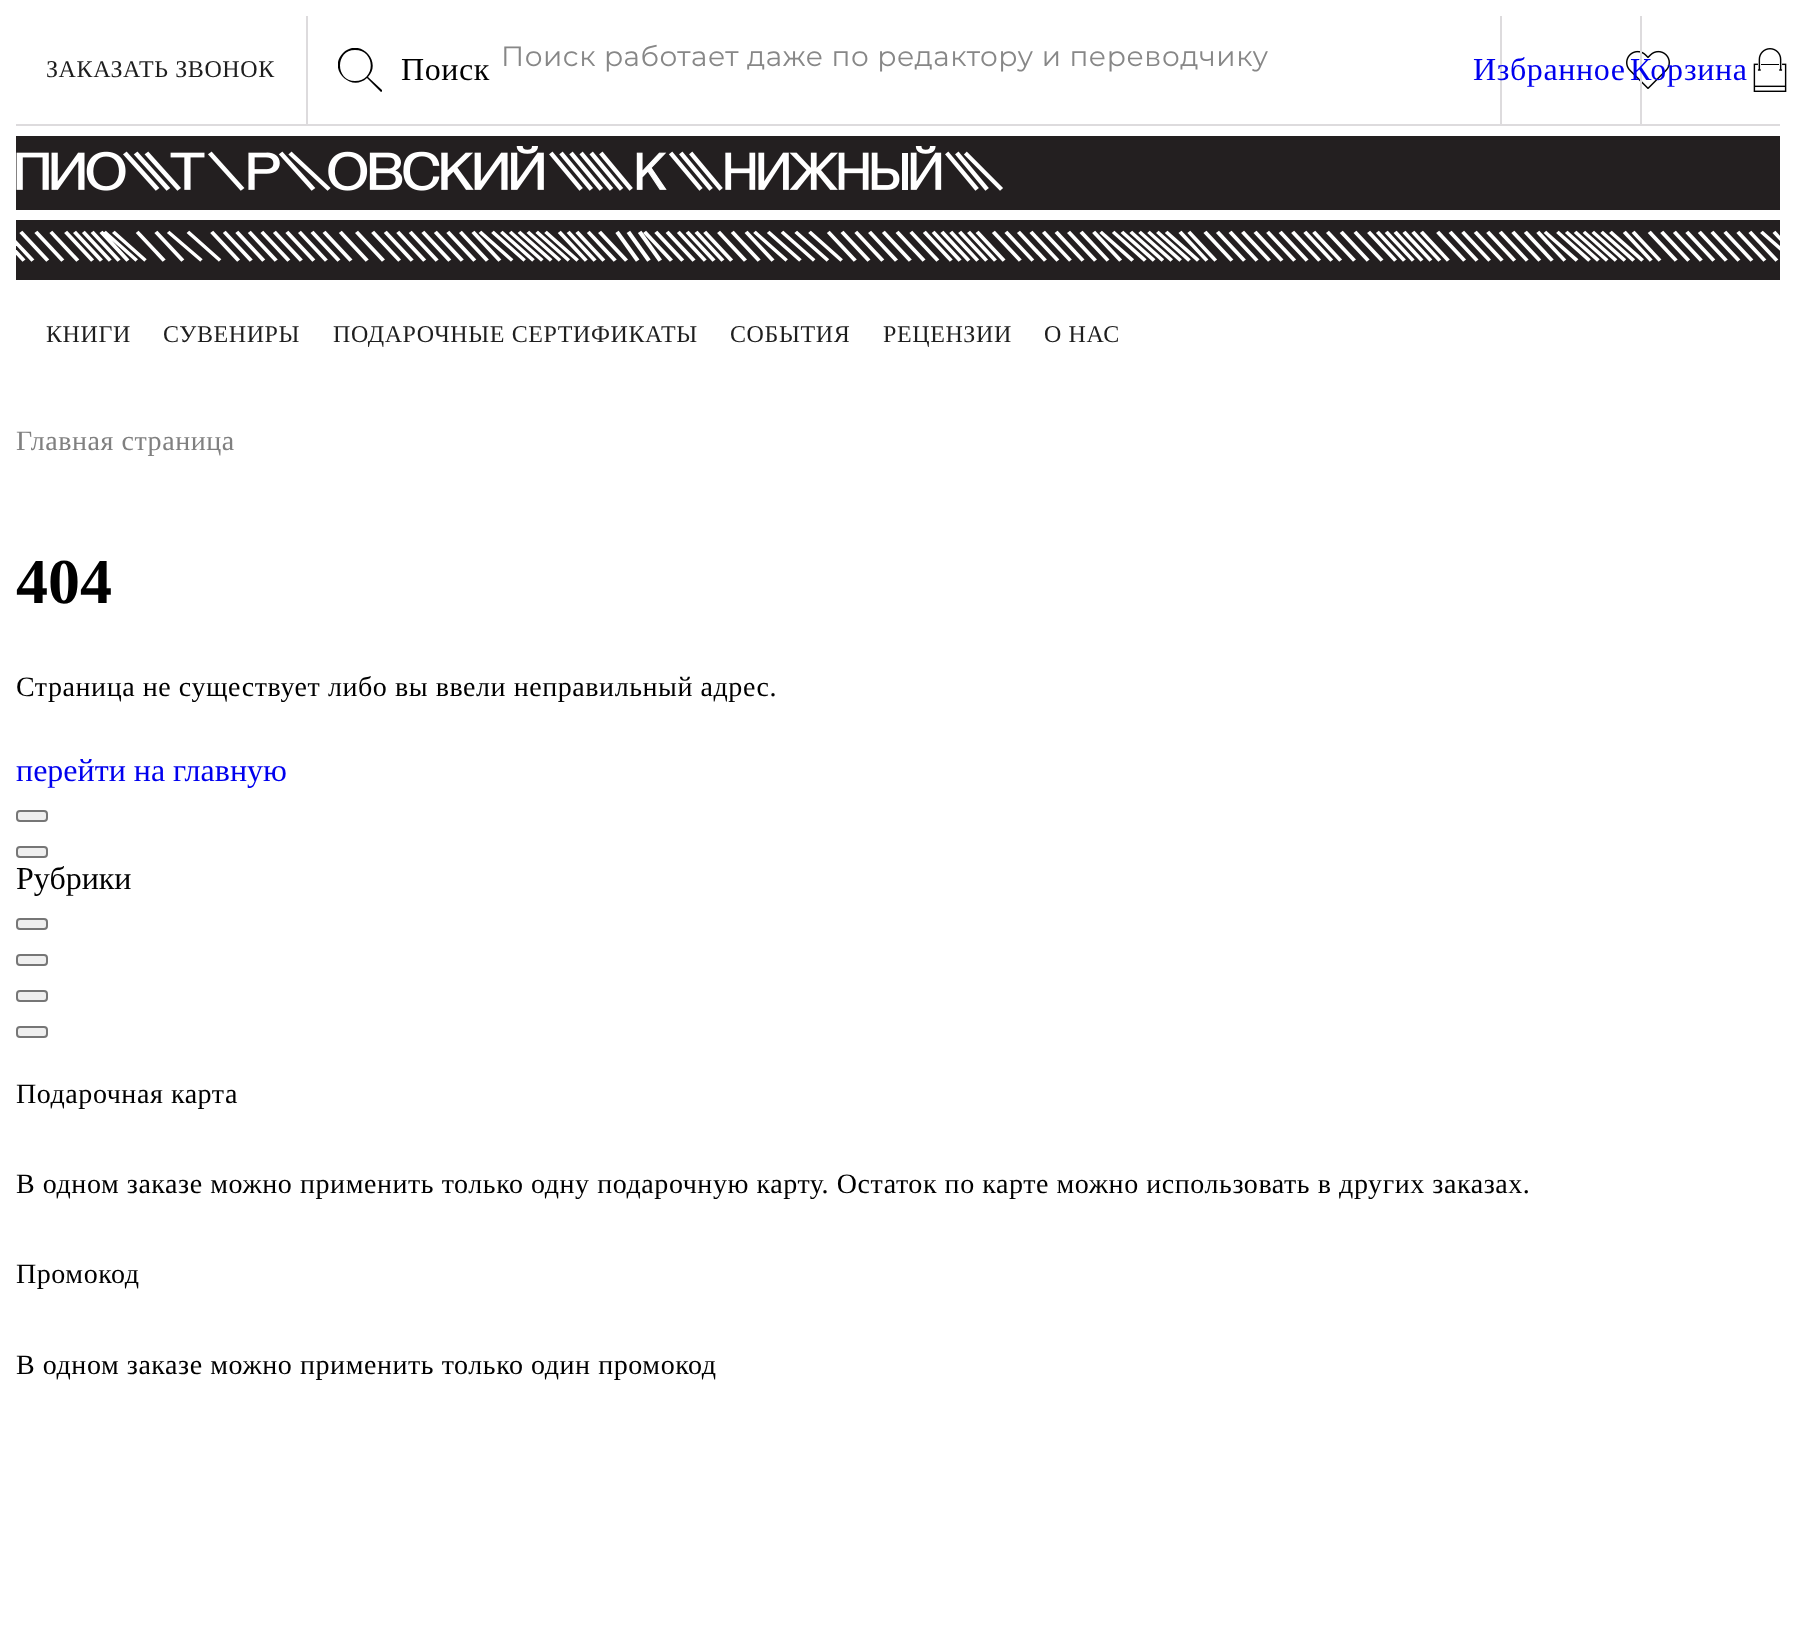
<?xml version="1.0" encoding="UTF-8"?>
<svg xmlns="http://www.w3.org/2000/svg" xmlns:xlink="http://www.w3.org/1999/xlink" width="1796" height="1625">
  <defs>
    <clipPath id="clip1"><rect x="338" y="48" width="44" height="44" /></clipPath>
  </defs>
  <rect width="100%" height="100%" fill="#ffffff" />
  <rect x="16" y="124" width="1764" height="2" fill="#dddbdd" />
  <rect x="306" y="16" width="2" height="108" fill="#dddbdd" />
  <g clip-path="url(#clip1)">
    <path d="M 382 90 l -14 -13 c 15 -16 -9 -40 -25 -24 c -16 16 8 40 24 25 l 14 14 c 1 0 1 -1 1 -2 z m -27 -9 c -20 0 -20 -31 0 -31 c 21 0 21 31 0 31 z" fill="#000000" />
  </g>
  <rect x="1500" y="16" width="2" height="108" fill="#dddbdd" />
  <image x="1626" y="50" width="44" height="39" xlink:href="image1.png" />
  <rect x="1640" y="16" width="2" height="108" fill="#dddbdd" />
  <image x="1753" y="48" width="34" height="44" xlink:href="image2.png" />
  <rect x="16" y="136" width="1764" height="74" fill="#231f20" />
  <image x="16" y="146" width="987" height="45" xlink:href="image3.png" />
  <rect x="16" y="220" width="1764" height="60" fill="#231f20" />
  <image x="16" y="230" width="1764" height="32" xlink:href="image4.png" />
  <rect x="17" y="811" width="30" height="10" rx="3" fill="#efefef" stroke="#767676" stroke-width="2" />
  <rect x="17" y="847" width="30" height="10" rx="3" fill="#efefef" stroke="#767676" stroke-width="2" />
  <rect x="17" y="919" width="30" height="10" rx="3" fill="#efefef" stroke="#767676" stroke-width="2" />
  <rect x="17" y="955" width="30" height="10" rx="3" fill="#efefef" stroke="#767676" stroke-width="2" />
  <rect x="17" y="991" width="30" height="10" rx="3" fill="#efefef" stroke="#767676" stroke-width="2" />
  <rect x="17" y="1027" width="30" height="10" rx="3" fill="#efefef" stroke="#767676" stroke-width="2" />
  <text x="46" y="77" style="font-family: Liberation Serif; font-size: 24px; letter-spacing: 0.6px; fill: #1e1e1e">ЗАКАЗАТЬ ЗВОНОК</text>
  <text x="401" y="80" style="font-family: Liberation Serif; font-size: 32px; letter-spacing: 0.6px; fill: #000000">Поиск</text>
  <text x="501" y="66" style="font-family: Montserrat; font-size: 28px; letter-spacing: 0.56px; fill: #878787">Поиск работает даже по редактору и переводчику</text>
  <text x="1473" y="80" style="font-family: Liberation Serif; font-size: 32px; letter-spacing: 0.6px; fill: #0000ee">Избранное</text>
  <text x="1630" y="80" style="font-family: Liberation Serif; font-size: 32px; letter-spacing: 0.6px; fill: #0000ee">Корзина</text>
  <text x="46" y="342" style="font-family: Liberation Serif; font-size: 24px; letter-spacing: 0.6px; fill: #1e1e1e">КНИГИ</text>
  <text x="163" y="342" style="font-family: Liberation Serif; font-size: 24px; letter-spacing: 0.6px; fill: #1e1e1e">СУВЕНИРЫ</text>
  <text x="333" y="342" style="font-family: Liberation Serif; font-size: 24px; letter-spacing: 0.6px; fill: #1e1e1e">ПОДАРОЧНЫЕ СЕРТИФИКАТЫ</text>
  <text x="730" y="342" style="font-family: Liberation Serif; font-size: 24px; letter-spacing: 0.6px; fill: #1e1e1e">СОБЫТИЯ</text>
  <text x="883" y="342" style="font-family: Liberation Serif; font-size: 24px; letter-spacing: 0.6px; fill: #1e1e1e">РЕЦЕНЗИИ</text>
  <text x="1044" y="342" style="font-family: Liberation Serif; font-size: 24px; letter-spacing: 0.6px; fill: #1e1e1e">О НАС</text>
  <text x="16" y="450" style="font-family: Liberation Serif; font-size: 28px; letter-spacing: 0.56px; fill: #808080">Главная страница</text>
  <text x="16" y="603" style="font-family: Liberation Serif; font-size: 64px; font-weight: bold; fill: #000000">404</text>
  <text x="16" y="696" style="font-family: Liberation Serif; font-size: 28px; letter-spacing: 0.56px; fill: #000000">Страница не существует либо вы ввели неправильный адрес.</text>
  <text x="16" y="781" style="font-family: Liberation Serif; font-size: 32px; fill: #0000ee">перейти на главную</text>
  <text x="16" y="889" style="font-family: Liberation Serif; font-size: 32px; fill: #000000">Рубрики</text>
  <text x="16" y="1103" style="font-family: Liberation Serif; font-size: 28px; letter-spacing: 0.56px; fill: #000000">Подарочная карта</text>
  <text x="16" y="1193" style="font-family: Liberation Serif; font-size: 28px; letter-spacing: 0.56px; fill: #000000">В одном заказе можно применить только одну подарочную карту. Остаток по карте можно использовать в других заказах.</text>
  <text x="16" y="1283" style="font-family: Liberation Serif; font-size: 28px; letter-spacing: 0.56px; fill: #000000">Промокод</text>
  <text x="16" y="1374" style="font-family: Liberation Serif; font-size: 28px; letter-spacing: 0.56px; fill: #000000">В одном заказе можно применить только один промокод</text>
</svg>
